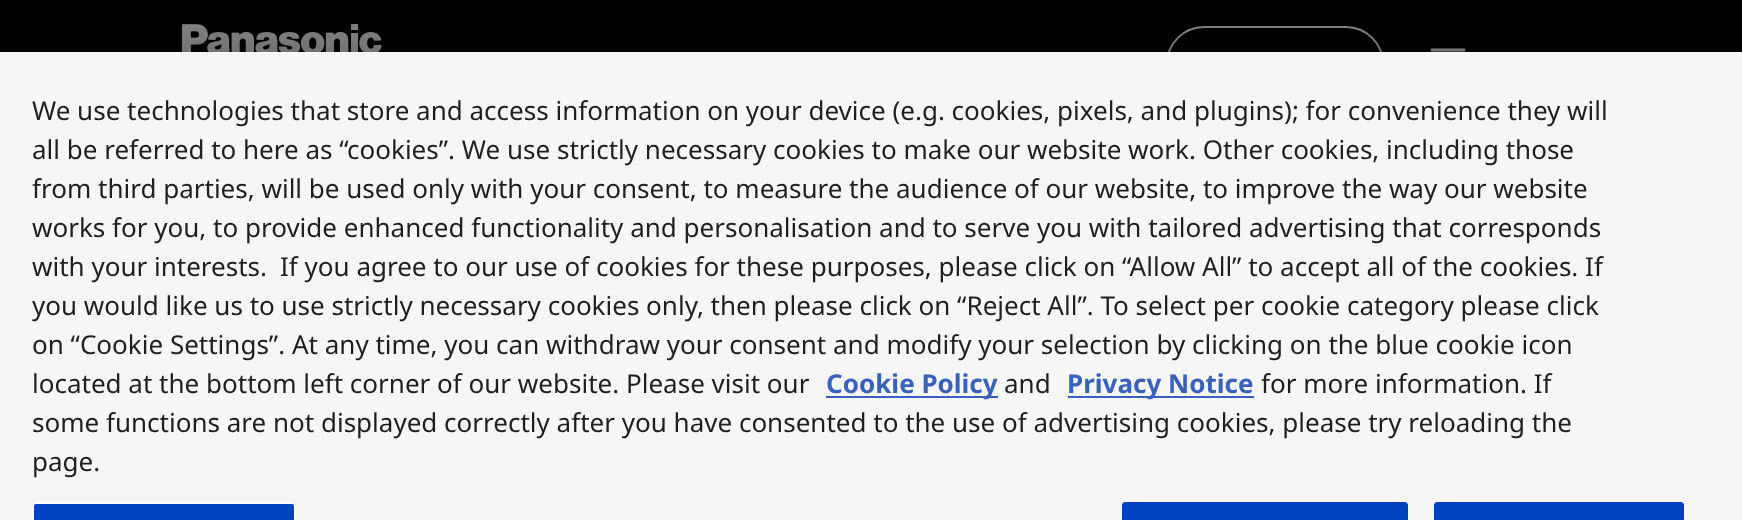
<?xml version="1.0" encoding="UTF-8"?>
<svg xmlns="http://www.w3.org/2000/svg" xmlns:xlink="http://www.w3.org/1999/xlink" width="1742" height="520">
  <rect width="100%" height="100%" fill="#000000" />
  <image x="181" y="24" width="201" height="28" xlink:href="image1.png" />
  <rect x="1167" y="27" width="216" height="74" rx="37" fill="none" stroke="#808080" stroke-width="2" />
  <image x="1430" y="48" width="36" height="4" xlink:href="image2.png" />
  <rect y="52" width="1742" height="468" fill="#000000" fill-opacity="0.2" filter="blur(18px)" />
  <rect y="52" width="1742" height="468" fill="#f6f6f6" />
  <rect x="826" y="396" width="172" height="2" fill="#3860be" />
  <rect x="1068" y="396" width="186" height="2" fill="#3860be" />
  <path d="M 36 502 h 256 c 2 0 4 2 4 4 v 14 h -264 v -14 c 0 -2 2 -4 4 -4 z" fill="#0041c0" />
  <rect x="33" y="503" width="262" height="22" rx="3" fill="none" stroke="#ffffff" stroke-width="2" />
  <path d="M 1126 502 h 278 c 2 0 4 2 4 4 v 14 h -286 v -14 c 0 -2 2 -4 4 -4 z" fill="#0041c0" />
  <rect x="1123" y="503" width="284" height="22" rx="3" fill="none" stroke="#0041c0" stroke-width="2" />
  <path d="M 1438 502 h 242 c 2 0 4 2 4 4 v 14 h -250 v -14 c 0 -2 2 -4 4 -4 z" fill="#0041c0" />
  <rect x="1435" y="503" width="248" height="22" rx="3" fill="none" stroke="#0041c0" stroke-width="2" />
  <text x="32" y="120" style="font-family: Noto Sans; font-size: 26.02px; fill: #1f1f1f">We use technologies that store and access information on your device (e.g. cookies, pixels, and plugins); for convenience they will</text>
  <text x="32" y="159" style="font-family: Noto Sans; font-size: 26.02px; fill: #1f1f1f">all be referred to here as “cookies”. We use strictly necessary cookies to make our website work. Other cookies, including those</text>
  <text x="32" y="198" style="font-family: Noto Sans; font-size: 26.02px; fill: #1f1f1f">from third parties, will be used only with your consent, to measure the audience of our website, to improve the way our website</text>
  <text x="32" y="237" style="font-family: Noto Sans; font-size: 26.02px; fill: #1f1f1f">works for you, to provide enhanced functionality and personalisation and to serve you with tailored advertising that corresponds</text>
  <text x="32" y="276" style="font-family: Noto Sans; font-size: 26.02px; fill: #1f1f1f">with your interests.</text>
  <text x="280" y="276" style="font-family: Noto Sans; font-size: 26.02px; fill: #1f1f1f">If you agree to our use of cookies for these purposes, please click on “Allow All” to accept all of the cookies. If</text>
  <text x="32" y="315" style="font-family: Noto Sans; font-size: 26.02px; fill: #1f1f1f">you would like us to use strictly necessary cookies only, then please click on “Reject All”. To select per cookie category please click</text>
  <text x="32" y="354" style="font-family: Noto Sans; font-size: 26.02px; fill: #1f1f1f">on “Cookie Settings”. At any time, you can withdraw your consent and modify your selection by clicking on the blue cookie icon</text>
  <text x="32" y="393" style="font-family: Noto Sans; font-size: 26.02px; fill: #1f1f1f">located at the bottom left corner of our website. Please visit our</text>
  <text x="826" y="393" style="font-family: Noto Sans; font-size: 26.02px; font-weight: bold; fill: #3860be">Cookie Policy</text>
  <text x="1004" y="393" style="font-family: Noto Sans; font-size: 26.02px; fill: #1f1f1f">and</text>
  <text x="1067" y="393" style="font-family: Noto Sans; font-size: 26.02px; font-weight: bold; fill: #3860be">Privacy Notice</text>
  <text x="1261" y="393" style="font-family: Noto Sans; font-size: 26.02px; fill: #1f1f1f">for more information. If</text>
  <text x="32" y="432" style="font-family: Noto Sans; font-size: 26.02px; fill: #1f1f1f">some functions are not displayed correctly after you have consented to the use of advertising cookies, please try reloading the</text>
  <text x="32" y="471" style="font-family: Noto Sans; font-size: 26.02px; fill: #1f1f1f">page.</text>
</svg>
